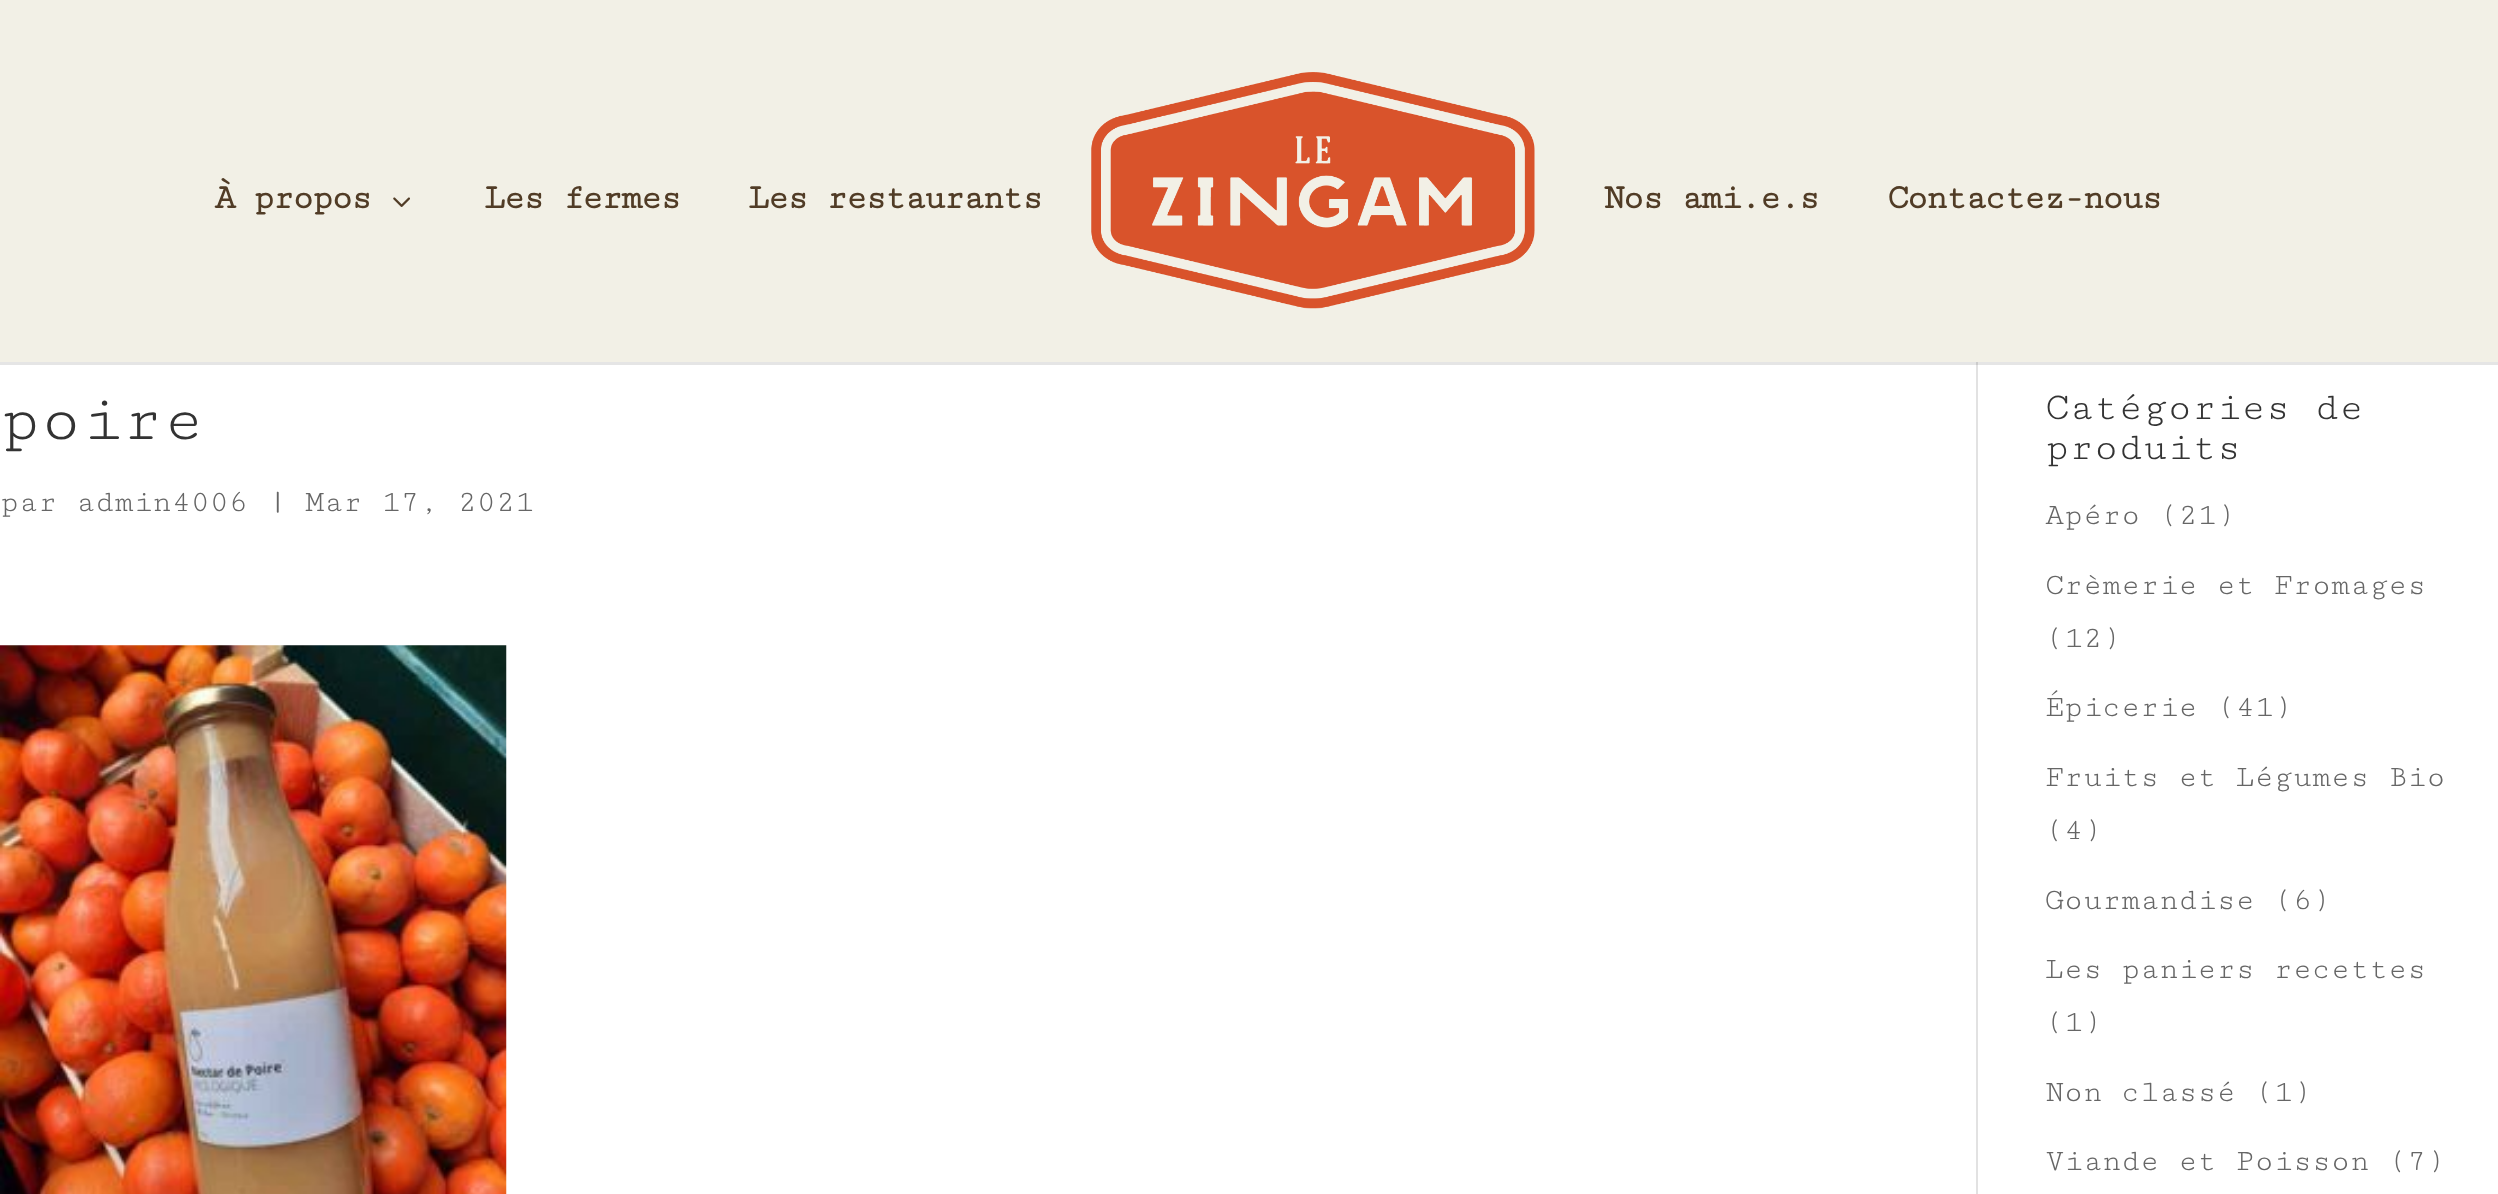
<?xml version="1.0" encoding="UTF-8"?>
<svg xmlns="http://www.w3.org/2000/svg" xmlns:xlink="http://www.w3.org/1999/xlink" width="2498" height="1194">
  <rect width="100%" height="100%" fill="#ffffff" />
  <rect x="1976" y="362" width="2" height="832" fill="#e2e2e2" />
  <path d="M 0 362 v 3 h 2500 v -363 v 360 z" fill="#000000" fill-opacity="0.1" />
  <rect width="2498" height="362" fill="#f2f0e6" />
  <image x="393" y="197" width="17" height="10" xlink:href="image1.png" />
  <image x="1091" y="72" width="444" height="237" xlink:href="image2.png" />
  <image x="0" y="645" width="507" height="549" xlink:href="image3.png" />
  <text x="214" y="208" style="font-family: Cutive Mono; font-size: 36px; font-weight: bold; letter-spacing: -2.25px; fill: #513c26">À propos</text>
  <text x="484" y="208" style="font-family: Cutive Mono; font-size: 36px; font-weight: bold; letter-spacing: -2.25px; fill: #513c26">Les fermes</text>
  <text x="748" y="208" style="font-family: Cutive Mono; font-size: 36px; font-weight: bold; letter-spacing: -2.25px; fill: #513c26">Les restaurants</text>
  <text x="1603" y="208" style="font-family: Cutive Mono; font-size: 36px; font-weight: bold; letter-spacing: -2.25px; fill: #513c26">Nos ami.e.s</text>
  <text x="1887" y="208" style="font-family: Cutive Mono; font-size: 36px; font-weight: bold; letter-spacing: -2.25px; fill: #513c26">Contactez-nous</text>
  <text x="0" y="439" style="font-family: Cutive Mono; font-size: 67.5px; fill: #333333">poire</text>
  <text x="0" y="511" style="font-family: Cutive Mono; font-size: 31.5px; fill: #666666">par admin4006 | Mar 17, 2021</text>
  <text x="2045" y="419" style="font-family: Cutive Mono; font-size: 40.5px; fill: #333333">Catégories de</text>
  <text x="2045" y="459" style="font-family: Cutive Mono; font-size: 40.5px; fill: #333333">produits</text>
  <text x="2045" y="524" style="font-family: Cutive Mono; font-size: 31.5px; fill: #666666">Apéro (21)</text>
  <text x="2045" y="594" style="font-family: Cutive Mono; font-size: 31.5px; fill: #666666">Crèmerie et Fromages</text>
  <text x="2045" y="647" style="font-family: Cutive Mono; font-size: 31.5px; fill: #666666">(12)</text>
  <text x="2045" y="716" style="font-family: Cutive Mono; font-size: 31.5px; fill: #666666">Épicerie (41)</text>
  <text x="2045" y="786" style="font-family: Cutive Mono; font-size: 31.5px; fill: #666666">Fruits et Légumes Bio</text>
  <text x="2045" y="839" style="font-family: Cutive Mono; font-size: 31.5px; fill: #666666">(4)</text>
  <text x="2045" y="909" style="font-family: Cutive Mono; font-size: 31.5px; fill: #666666">Gourmandise (6)</text>
  <text x="2045" y="978" style="font-family: Cutive Mono; font-size: 31.5px; fill: #666666">Les paniers recettes</text>
  <text x="2045" y="1031" style="font-family: Cutive Mono; font-size: 31.5px; fill: #666666">(1)</text>
  <text x="2045" y="1101" style="font-family: Cutive Mono; font-size: 31.5px; fill: #666666">Non classé (1)</text>
  <text x="2045" y="1170" style="font-family: Cutive Mono; font-size: 31.5px; fill: #666666">Viande et Poisson (7)</text>
</svg>
